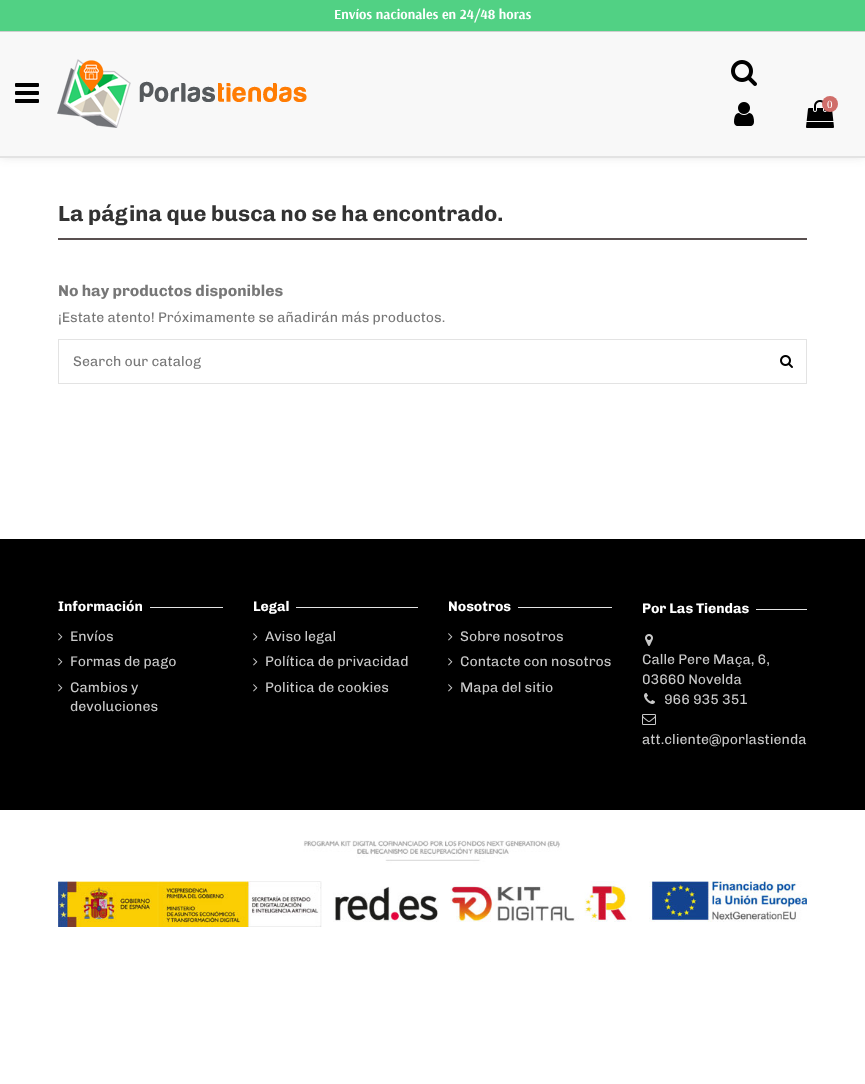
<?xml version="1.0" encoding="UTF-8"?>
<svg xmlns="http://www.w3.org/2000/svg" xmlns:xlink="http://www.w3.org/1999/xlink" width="865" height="1084">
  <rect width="100%" height="100%" fill="#ffffff" />
  <rect y="-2" width="865" height="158" fill="#3d3939" fill-opacity="0.17" filter="blur(5.5px)" />
  <rect y="32" width="865" height="124" fill="#f8f8f8" />
  <rect y="156" width="865" height="2" fill="#e3e3e3" />
  <rect width="865" height="31" fill="#51d184" />
  <rect y="31" width="865" height="1" fill="#cfcfcf" />
  <image x="15" y="83" width="24" height="20" xlink:href="image1.png" />
  <image x="57" y="59" width="250" height="69" xlink:href="image2.png" />
  <image x="731" y="60" width="26" height="26" xlink:href="image3.png" />
  <image x="734" y="102" width="20" height="24" xlink:href="image4.png" />
  <image x="806" y="100" width="28" height="28" xlink:href="image5.png" />
  <circle cx="830" cy="104" r="8" fill="#d06e6a" />
  <rect x="58" y="238" width="749" height="2" fill="#595050" />
  <rect x="58.5" y="339.5" width="748" height="44" fill="none" stroke="#e3e3e3" />
  <image x="780" y="355" width="13" height="13" xlink:href="image6.png" />
  <rect y="539" width="865" height="271" fill="#000000" />
  <rect x="150" y="607" width="73" height="1" fill="#e3e3e3" />
  <image x="58" y="633" width="5" height="8" xlink:href="image7.png" />
  <image x="58" y="658" width="5" height="8" xlink:href="image7.png" />
  <image x="58" y="684" width="5" height="8" xlink:href="image7.png" />
  <rect x="296" y="607" width="122" height="1" fill="#e3e3e3" />
  <image x="253" y="633" width="5" height="8" xlink:href="image7.png" />
  <image x="253" y="658" width="5" height="8" xlink:href="image7.png" />
  <image x="253" y="684" width="5" height="8" xlink:href="image7.png" />
  <rect x="518" y="607" width="94" height="1" fill="#e3e3e3" />
  <image x="448" y="633" width="5" height="8" xlink:href="image7.png" />
  <image x="448" y="658" width="5" height="8" xlink:href="image7.png" />
  <image x="448" y="684" width="5" height="8" xlink:href="image7.png" />
  <rect x="756" y="609" width="51" height="1" fill="#e3e3e3" />
  <image x="645" y="634" width="8" height="12" xlink:href="image8.png" />
  <image x="644" y="693" width="11" height="11" xlink:href="image9.png" />
  <image x="642" y="714" width="14" height="11" xlink:href="image10.png" />
  <image x="58" y="840" width="749" height="87" xlink:href="image11.png" />
  <text x="334" y="19" style="font-family: Arsenal; font-size: 14px; font-weight: bold; fill: #ffffff">Envíos nacionales en 24/48 horas</text>
  <text x="827" y="108" style="font-family: Liberation Serif; font-size: 11px; fill: #ffffff">0</text>
  <text x="58" y="221" style="font-family: Chivo; font-size: 22px; font-weight: bold; fill: #333333">La página que busca no se ha encontrado.</text>
  <text x="58" y="296" style="font-family: Chivo; font-size: 15.75px; font-weight: bold; fill: #777777">No hay productos disponibles</text>
  <text x="58" y="322" style="font-family: Chivo; font-size: 14px; fill: #777777">¡Estate atento! Próximamente se añadirán más productos.</text>
  <text x="73" y="366" style="font-family: Chivo; font-size: 14px; fill: #777777">Search our catalog</text>
  <text x="58" y="611" style="font-family: Chivo; font-size: 14px; font-weight: bold; fill: #ffffff">Información</text>
  <text x="70" y="641" style="font-family: Chivo; font-size: 14px; fill: #c9c9c9">Envíos</text>
  <text x="70" y="666" style="font-family: Chivo; font-size: 14px; fill: #c9c9c9">Formas de pago</text>
  <text x="70" y="692" style="font-family: Chivo; font-size: 14px; fill: #c9c9c9">Cambios y</text>
  <text x="70" y="711" style="font-family: Chivo; font-size: 14px; fill: #c9c9c9">devoluciones</text>
  <text x="253" y="611" style="font-family: Chivo; font-size: 14px; font-weight: bold; fill: #ffffff">Legal</text>
  <text x="265" y="641" style="font-family: Chivo; font-size: 14px; fill: #c9c9c9">Aviso legal</text>
  <text x="265" y="666" style="font-family: Chivo; font-size: 14px; fill: #c9c9c9">Política de privacidad</text>
  <text x="265" y="692" style="font-family: Chivo; font-size: 14px; fill: #c9c9c9">Politica de cookies</text>
  <text x="448" y="611" style="font-family: Chivo; font-size: 14px; font-weight: bold; fill: #ffffff">Nosotros</text>
  <text x="460" y="641" style="font-family: Chivo; font-size: 14px; fill: #c9c9c9">Sobre nosotros</text>
  <text x="460" y="666" style="font-family: Chivo; font-size: 14px; fill: #c9c9c9">Contacte con nosotros</text>
  <text x="460" y="692" style="font-family: Chivo; font-size: 14px; fill: #c9c9c9">Mapa del sitio</text>
  <text x="642" y="613" style="font-family: Chivo; font-size: 14px; font-weight: bold; fill: #ffffff">Por Las Tiendas</text>
  <text x="642" y="664" style="font-family: Chivo; font-size: 14px; fill: #c9c9c9">Calle Pere Maça, 6,</text>
  <text x="642" y="684" style="font-family: Chivo; font-size: 14px; fill: #c9c9c9">03660 Novelda</text>
  <text x="664" y="704" style="font-family: Chivo; font-size: 14px; fill: #c9c9c9">966 935 351</text>
  <text x="642" y="744" style="font-family: Chivo; font-size: 14px; fill: #c9c9c9">att.cliente@porlastienda</text>
</svg>
